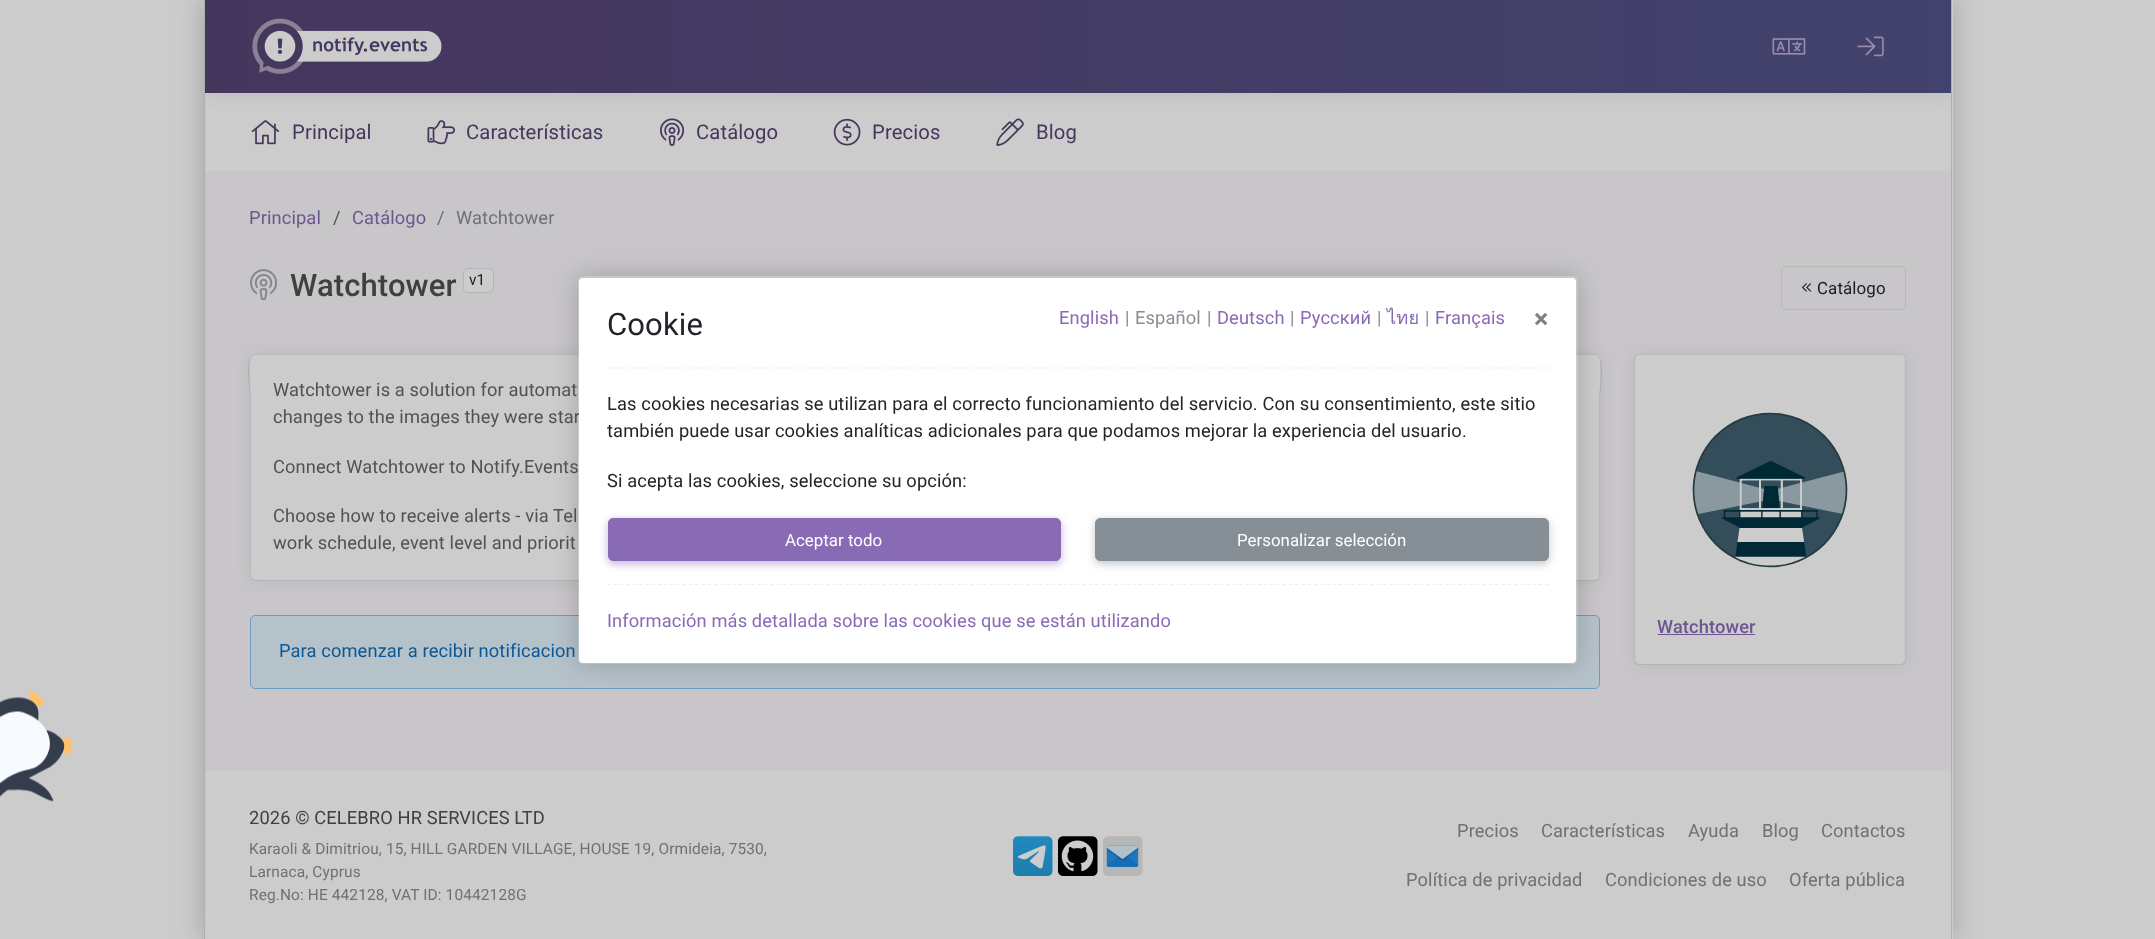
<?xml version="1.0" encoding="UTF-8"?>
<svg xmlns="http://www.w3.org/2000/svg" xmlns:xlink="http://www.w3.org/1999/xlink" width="2155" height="939">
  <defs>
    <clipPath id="clip1"><path d="M 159 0 h 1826 v 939 h -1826 z m 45 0 h 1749 v 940 h -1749 z" clip-rule="evenodd" /></clipPath>
    <clipPath id="clip2"><path d="M 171 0 h 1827 v 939 h -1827 z m 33 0 h 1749 v 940 h -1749 z" clip-rule="evenodd" /></clipPath>
    <clipPath id="clip3"><rect x="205" y="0" width="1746" height="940" /></clipPath>
    <linearGradient id="g1" gradientUnits="userSpaceOnUse" x1="1951" y1="46" x2="205" y2="46"><stop offset="0" stop-color="#41426d" /><stop offset="1" stop-color="#46365e" /></linearGradient>
    <clipPath id="clip4"><path d="M 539 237 h 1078 v 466 h -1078 z m 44 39 h 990 c 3 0 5 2 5 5 v 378 c 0 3 -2 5 -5 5 h -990 c -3 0 -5 -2 -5 -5 v -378 c 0 -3 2 -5 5 -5 z" clip-rule="evenodd" /></clipPath>
  </defs>
  <rect width="100%" height="100%" fill="#cccccc" />
  <g clip-path="url(#clip1)">
    <rect x="198" width="1748" height="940" fill="#000000" fill-opacity="0.1" filter="blur(12.5px)" />
  </g>
  <g clip-path="url(#clip2)">
    <rect x="210" width="1749" height="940" fill="#000000" fill-opacity="0.1" filter="blur(12.5px)" />
  </g>
  <rect x="1951" width="1" height="939" fill="#aeaeae" />
  <rect x="204" width="1" height="939" fill="#aeaeae" />
  <rect x="205" y="171" width="1746" height="600" fill="#c8c6c9" />
  <image x="251" y="120" width="29" height="25" xlink:href="image4.png" />
  <image x="427" y="120" width="28" height="25" xlink:href="image5.png" />
  <image x="660" y="118" width="25" height="28" xlink:href="image6.png" />
  <image x="833" y="118" width="28" height="28" xlink:href="image7.png" />
  <image x="996" y="118" width="28" height="28" xlink:href="image8.png" />
  <g clip-path="url(#clip3)">
    <rect x="205" width="1746" height="93" fill="#453163" fill-opacity="0.13" filter="blur(9px)" />
  </g>
  <rect x="205" width="1746" height="93" fill="url(#g1)" />
  <image x="252" y="18" width="190" height="56" xlink:href="image1.png" />
  <image x="1772" y="38" width="34" height="17" xlink:href="image2.png" />
  <image x="1857" y="36" width="27" height="21" xlink:href="image3.png" />
  <image x="250" y="269" width="27" height="32" xlink:href="image9.png" />
  <rect x="463.5" y="268.5" width="30" height="24" rx="4.5" fill="#cccccc" stroke="#b2b5b8" />
  <rect x="1781.5" y="266.5" width="124" height="43" rx="4.5" fill="none" stroke="#b7b7b7" />
  <image x="1802" y="283" width="10" height="9" xlink:href="image10.png" />
  <rect x="250" y="354" width="1350" height="227" rx="5" fill="#322348" fill-opacity="0.08" filter="blur(8px)" />
  <rect x="250" y="354" width="1350" height="227" rx="5" fill="#cccccc" />
  <path d="M 1598 579.5 l -3 1 h -1340 l -3 -1" fill="none" stroke="#b3b3b3" stroke-width="1.2" />
  <path d="M 252 579.5 l -1.5 -3.5 v -181 c 0 -1 -6.5 -40.5 4.5 -40.5 h 1340 c 11 0 4.5 39.5 4.5 40.5 v 181 l -1.5 3.5" fill="none" stroke="#000000" stroke-opacity="0.09" stroke-width="1.2" />
  <rect x="250.5" y="615.5" width="1349" height="73" rx="4.5" fill="#b6c2ca" stroke="#689dc6" />
  <rect x="1634" y="354" width="272" height="311" rx="5" fill="#322348" fill-opacity="0.08" filter="blur(8px)" />
  <rect x="1634" y="354" width="272" height="311" rx="5" fill="#cccccc" />
  <path d="M 1904.5 663 c -1 1 -2 1.5 -3.5 1.5 h -262 c -1.5 0 -2.5 -0.5 -3.5 -1.5" fill="none" stroke="#b3b3b3" stroke-width="1.2" />
  <path d="M 1635.5 663 c -0.5 -0.5 -1 -2 -1 -3 v -301 c 0 -1.5 0.5 -2.5 1 -3.5 c 1 -0.5 2 -1 3.5 -1 h 262 c 1.5 0 2.5 0.5 3.5 1 c 0.5 1 1 2 1 3.5 v 301 c 0 1 -0.5 2.5 -1 3" fill="none" stroke="#000000" stroke-opacity="0.09" stroke-width="1.2" />
  <image x="1692" y="412" width="156" height="156" xlink:href="image11.png" />
  <rect x="1658" y="634" width="97" height="1" fill="#6d5591" />
  <image x="1013" y="836" width="40" height="40" xlink:href="image12.png" />
  <image x="1058" y="836" width="40" height="40" xlink:href="image13.png" />
  <image x="1103" y="836" width="40" height="40" xlink:href="image14.png" />
  <g clip-path="url(#clip4)">
    <rect x="578" y="276" width="1000" height="388" rx="5" fill="#000000" fill-opacity="0.2" filter="blur(12.5px)" />
  </g>
  <image x="0" y="689" width="73" height="113" xlink:href="image15.png" />
  <text x="292" y="139" style="font-family: Roboto; font-size: 20.25px; letter-spacing: 0.12px; fill: #46365e">Principal</text>
  <text x="466" y="139" style="font-family: Roboto; font-size: 20.25px; letter-spacing: 0.12px; fill: #46365e">Características</text>
  <text x="696" y="139" style="font-family: Roboto; font-size: 20.25px; letter-spacing: 0.12px; fill: #46365e">Catálogo</text>
  <text x="872" y="139" style="font-family: Roboto; font-size: 20.25px; letter-spacing: 0.12px; fill: #46365e">Precios</text>
  <text x="1036" y="139" style="font-family: Roboto; font-size: 20.25px; letter-spacing: 0.12px; fill: #46365e">Blog</text>
  <text x="249" y="224" style="font-family: Roboto; font-size: 18.28px; letter-spacing: 0.12px; fill: #6d5591">Principal</text>
  <text x="333" y="224" style="font-family: Roboto; font-size: 18.28px; letter-spacing: 0.12px; fill: #525252">/</text>
  <text x="352" y="224" style="font-family: Roboto; font-size: 18.28px; letter-spacing: 0.12px; fill: #6d5591">Catálogo</text>
  <text x="437" y="224" style="font-family: Roboto; font-size: 18.28px; letter-spacing: 0.12px; fill: #6b7278">/</text>
  <text x="456" y="224" style="font-family: Roboto; font-size: 18.28px; letter-spacing: 0.12px; fill: #6b7278">Watchtower</text>
  <text x="290" y="296" style="font-family: Roboto; font-size: 31px; font-weight: 500; letter-spacing: 0.12px; fill: #404040">Watchtower</text>
  <text x="469" y="285" style="font-family: Roboto; font-size: 15.45px; letter-spacing: 0.12px; fill: #1a1e21">v1</text>
  <text x="1817" y="294" style="font-family: Roboto; font-size: 16.9px; letter-spacing: 0.12px; fill: #1a1e21">Catálogo</text>
  <text x="273" y="396" style="font-family: Roboto; font-size: 18.28px; letter-spacing: 0.12px; fill: #525252">Watchtower is a solution for automat</text>
  <text x="273" y="423" style="font-family: Roboto; font-size: 18.28px; letter-spacing: 0.12px; fill: #525252">changes to the images they were star</text>
  <text x="273" y="473" style="font-family: Roboto; font-size: 18.28px; letter-spacing: 0.12px; fill: #525252">Connect Watchtower to Notify.Events</text>
  <text x="273" y="522" style="font-family: Roboto; font-size: 18.28px; letter-spacing: 0.12px; fill: #525252">Choose how to receive alerts - via Tel</text>
  <text x="273" y="549" style="font-family: Roboto; font-size: 18.28px; letter-spacing: 0.12px; fill: #525252">work schedule, event level and priorit</text>
  <text x="279" y="657" style="font-family: Roboto; font-size: 18.28px; letter-spacing: 0.12px; fill: #085897">Para comenzar a recibir notificacion</text>
  <text x="1657" y="633" style="font-family: Roboto; font-size: 18.28px; font-weight: 500; letter-spacing: 0.12px; fill: #6d5591">Watchtower</text>
  <text x="249" y="824" style="font-family: Roboto; font-size: 18.28px; letter-spacing: 0.12px; fill: #404040">2026 © CELEBRO HR SERVICES LTD</text>
  <text x="249" y="854" style="font-family: Roboto; font-size: 15.45px; letter-spacing: 0.12px; fill: #6b7278">Karaoli &amp; Dimitriou, 15, HILL GARDEN VILLAGE, HOUSE 19, Ormideia, 7530,</text>
  <text x="249" y="877" style="font-family: Roboto; font-size: 15.45px; letter-spacing: 0.12px; fill: #6b7278">Larnaca, Cyprus</text>
  <text x="249" y="900" style="font-family: Roboto; font-size: 15.45px; letter-spacing: 0.12px; fill: #6b7278">Reg.No: ΗΕ 442128, VAT ID: 10442128G</text>
  <text x="1457" y="837" style="font-family: Roboto; font-size: 18.28px; letter-spacing: 0.12px; fill: #6b7278">Precios</text>
  <text x="1541" y="837" style="font-family: Roboto; font-size: 18.28px; letter-spacing: 0.12px; fill: #6b7278">Características</text>
  <text x="1688" y="837" style="font-family: Roboto; font-size: 18.28px; letter-spacing: 0.12px; fill: #6b7278">Ayuda</text>
  <text x="1762" y="837" style="font-family: Roboto; font-size: 18.28px; letter-spacing: 0.12px; fill: #6b7278">Blog</text>
  <text x="1821" y="837" style="font-family: Roboto; font-size: 18.28px; letter-spacing: 0.12px; fill: #6b7278">Contactos</text>
  <text x="1406" y="886" style="font-family: Roboto; font-size: 18.28px; letter-spacing: 0.12px; fill: #6b7278">Política de privacidad</text>
  <text x="1605" y="886" style="font-family: Roboto; font-size: 18.28px; letter-spacing: 0.12px; fill: #6b7278">Condiciones de uso</text>
  <text x="1789" y="886" style="font-family: Roboto; font-size: 18.28px; letter-spacing: 0.12px; fill: #6b7278">Oferta pública</text>
  <rect x="579" y="278" width="997" height="385" rx="4" fill="#ffffff" />
  <text x="607" y="335" style="font-family: Roboto; font-size: 31px; letter-spacing: 0.12px; fill: #212529">Cookie</text>
  <text x="1059" y="324" style="font-family: Roboto; font-size: 18.28px; letter-spacing: 0.12px; fill: #886ab5">English</text>
  <text x="1125" y="324" style="font-family: Roboto; font-size: 18.28px; letter-spacing: 0.12px; fill: #868e96">|</text>
  <text x="1135" y="324" style="font-family: Roboto; font-size: 18.28px; letter-spacing: 0.12px; fill: #868e96">Español</text>
  <text x="1207" y="324" style="font-family: Roboto; font-size: 18.28px; letter-spacing: 0.12px; fill: #868e96">|</text>
  <text x="1217" y="324" style="font-family: Roboto; font-size: 18.28px; letter-spacing: 0.12px; fill: #886ab5">Deutsch</text>
  <text x="1290" y="324" style="font-family: Roboto; font-size: 18.28px; letter-spacing: 0.12px; fill: #868e96">|</text>
  <text x="1300" y="324" style="font-family: Roboto; font-size: 18.28px; letter-spacing: 0.12px; fill: #886ab5">Русский</text>
  <text x="1377" y="324" style="font-family: Roboto; font-size: 18.28px; letter-spacing: 0.12px; fill: #868e96">|</text>
  <text x="1387" y="324" style="font-family: Loma; font-size: 18.28px; letter-spacing: 0.12px; fill: #886ab5">ไทย</text>
  <text x="1425" y="324" style="font-family: Roboto; font-size: 18.28px; letter-spacing: 0.12px; fill: #868e96">|</text>
  <text x="1435" y="324" style="font-family: Roboto; font-size: 18.28px; letter-spacing: 0.12px; fill: #886ab5">Français</text>
  <text x="1534" y="328" style="font-family: Roboto; font-size: 27px; font-weight: bold; fill: #808080">×</text>
  <path d="M 607.5 368 h 941.5" fill="none" stroke="#eeeeee" stroke-width="1.2" stroke-dasharray="3.75 2.5" />
  <text x="607" y="410" style="font-family: Roboto; font-size: 18.28px; letter-spacing: 0.12px; fill: #212529">Las cookies necesarias se utilizan para el correcto funcionamiento del servicio. Con su consentimiento, este sitio</text>
  <text x="607" y="437" style="font-family: Roboto; font-size: 18.28px; letter-spacing: 0.12px; fill: #212529">también puede usar cookies analíticas adicionales para que podamos mejorar la experiencia del usuario.</text>
  <text x="607" y="487" style="font-family: Roboto; font-size: 18.28px; letter-spacing: 0.12px; fill: #212529">Si acepta las cookies, seleccione su opción:</text>
  <rect x="608" y="520" width="453" height="44" rx="5" fill="#886ab5" fill-opacity="0.5" filter="blur(4px)" />
  <rect x="608.5" y="518.5" width="452" height="42" rx="4.5" fill="#886ab5" stroke="#886ab5" />
  <text x="785" y="546" style="font-family: Roboto; font-size: 16.9px; fill: #ffffff">Aceptar todo</text>
  <rect x="1095" y="520" width="454" height="44" rx="5" fill="#868e96" fill-opacity="0.5" filter="blur(4px)" />
  <rect x="1095.5" y="518.5" width="453" height="42" rx="4.5" fill="#868e96" stroke="#868e96" />
  <text x="1237" y="546" style="font-family: Roboto; font-size: 16.9px; fill: #ffffff">Personalizar selección</text>
  <path d="M 607.5 584.5 h 941.5" fill="none" stroke="#eeeeee" stroke-width="1.2" stroke-dasharray="3.75 2.5" />
  <text x="607" y="627" style="font-family: Roboto; font-size: 18.28px; letter-spacing: 0.12px; fill: #886ab5">Información más detallada sobre las cookies que se están utilizando</text>
</svg>
